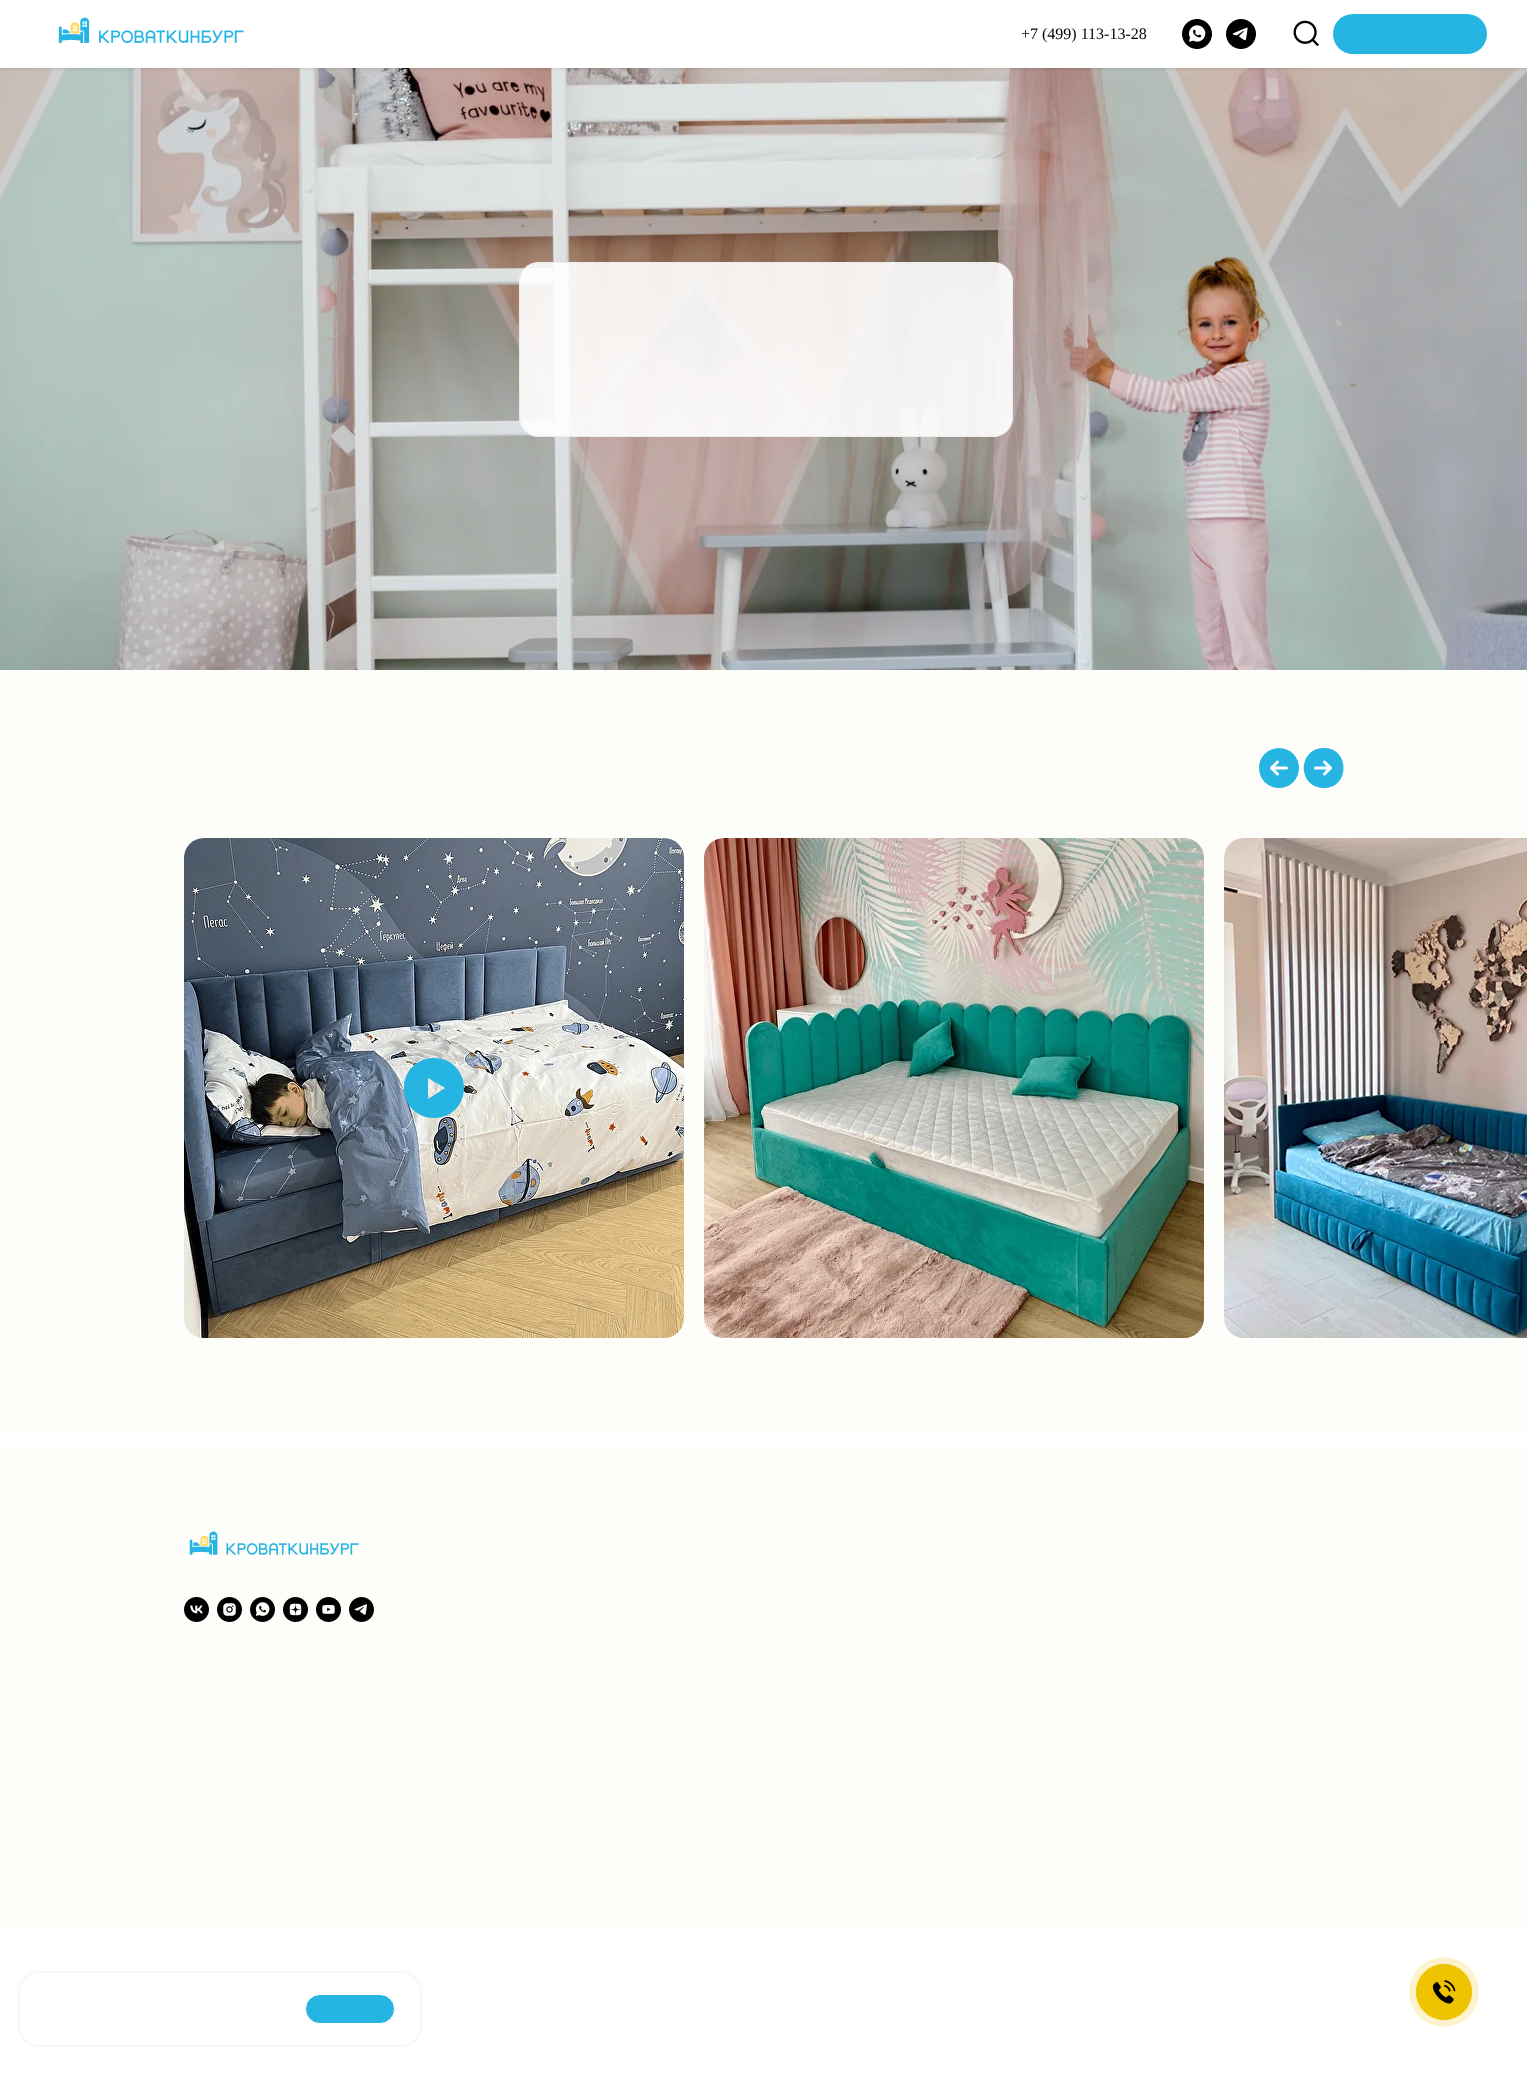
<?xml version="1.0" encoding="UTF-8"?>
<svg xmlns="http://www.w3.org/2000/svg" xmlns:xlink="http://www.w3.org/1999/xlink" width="1527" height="2075">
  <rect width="100%" height="100%" fill="#ffffff" />
  <image x="0" y="68" width="1527" height="602" xlink:href="image5.png" />
  <rect y="1" width="1527" height="68" fill="#000000" fill-opacity="0.1" filter="blur(1.5px)" />
  <rect width="1527" height="68" fill="#ffffff" />
  <image x="58" y="17" width="186" height="26" xlink:href="image1.png" />
  <image x="1182" y="19" width="30" height="30" xlink:href="image2.png" />
  <image x="1226" y="19" width="30" height="30" xlink:href="image3.png" />
  <image x="1293" y="20" width="26" height="27" xlink:href="image4.png" />
  <rect x="1333" y="14" width="154" height="40" rx="20" fill="#26b5e3" />
  <rect x="519" y="262" width="494" height="175" rx="20" fill="#ffffff" fill-opacity="0.9" />
  <rect x="519.5" y="262.5" width="493" height="174" rx="19.5" fill="none" stroke="#ebebeb" stroke-opacity="0.9" />
  <rect y="670" width="1527" height="764" fill="#fdfdf9" />
  <circle cx="1279" cy="768" r="20" fill="#26b5e3" />
  <path d="M 1277.5 762 l -6 6 m 0 0 l 6 6 m -6 -6 h 15" fill="none" stroke="#ffffff" stroke-width="3" stroke-linecap="round" />
  <path d="M 1324 788 c -27 0 -27 -40 0 -40 c 26 0 26 40 0 40 z" fill="#26b5e3" />
  <path d="M 1324.5 774 l 6 -6 m 0 0 l -6 -6 m 6 6 h -15" fill="none" stroke="#ffffff" stroke-width="3" stroke-linecap="round" />
  <image x="184" y="838" width="500" height="500" xlink:href="image6.png" />
  <path d="M 434 1118 c 17 0 30 -13 30 -30 c 0 -17 -13 -30 -30 -30 c -17 0 -30 13 -30 30 c 0 17 13 30 30 30 z m -6 -40 l 17 10 l -17 11 z" fill="#26b5e3" fill-rule="evenodd" />
  <image x="704" y="838" width="500" height="500" xlink:href="image7.png" />
  <image x="1224" y="838" width="303" height="500" xlink:href="image8.png" />
  <rect y="1449" width="1527" height="479" fill="#fdfdf9" />
  <image x="189" y="1531" width="170" height="24" xlink:href="image9.png" />
  <image x="184" y="1597" width="25" height="25" xlink:href="image10.png" />
  <image x="217" y="1597" width="25" height="25" xlink:href="image11.png" />
  <image x="250" y="1597" width="25" height="25" xlink:href="image12.png" />
  <image x="283" y="1597" width="25" height="25" xlink:href="image13.png" />
  <image x="316" y="1597" width="25" height="25" xlink:href="image14.png" />
  <image x="349" y="1597" width="25" height="25" xlink:href="image15.png" />
  <rect x="20" y="1973" width="400" height="72" rx="20" fill="#000000" fill-opacity="0.1" filter="blur(2.5px)" />
  <rect x="20" y="1973" width="400" height="72" rx="20" fill="#ffffff" />
  <rect x="305.5" y="1994.5" width="89" height="29" rx="14.5" fill="#26b5e3" stroke="#ffffff" />
  <circle cx="1444" cy="1992" r="35" fill="#fcf3cc" />
  <circle cx="1444" cy="1992" r="27.6" fill="none" stroke="#eec200" stroke-width="0.8" />
  <circle cx="1444" cy="1992" r="28" fill="#eec200" />
  <image x="1432" y="1980" width="24" height="24" xlink:href="image16.png" />
  <text x="1021" y="39" style="font-family: Liberation Serif; font-size: 16px; fill: #000000">+7 (499) 113-13-28</text>
</svg>
